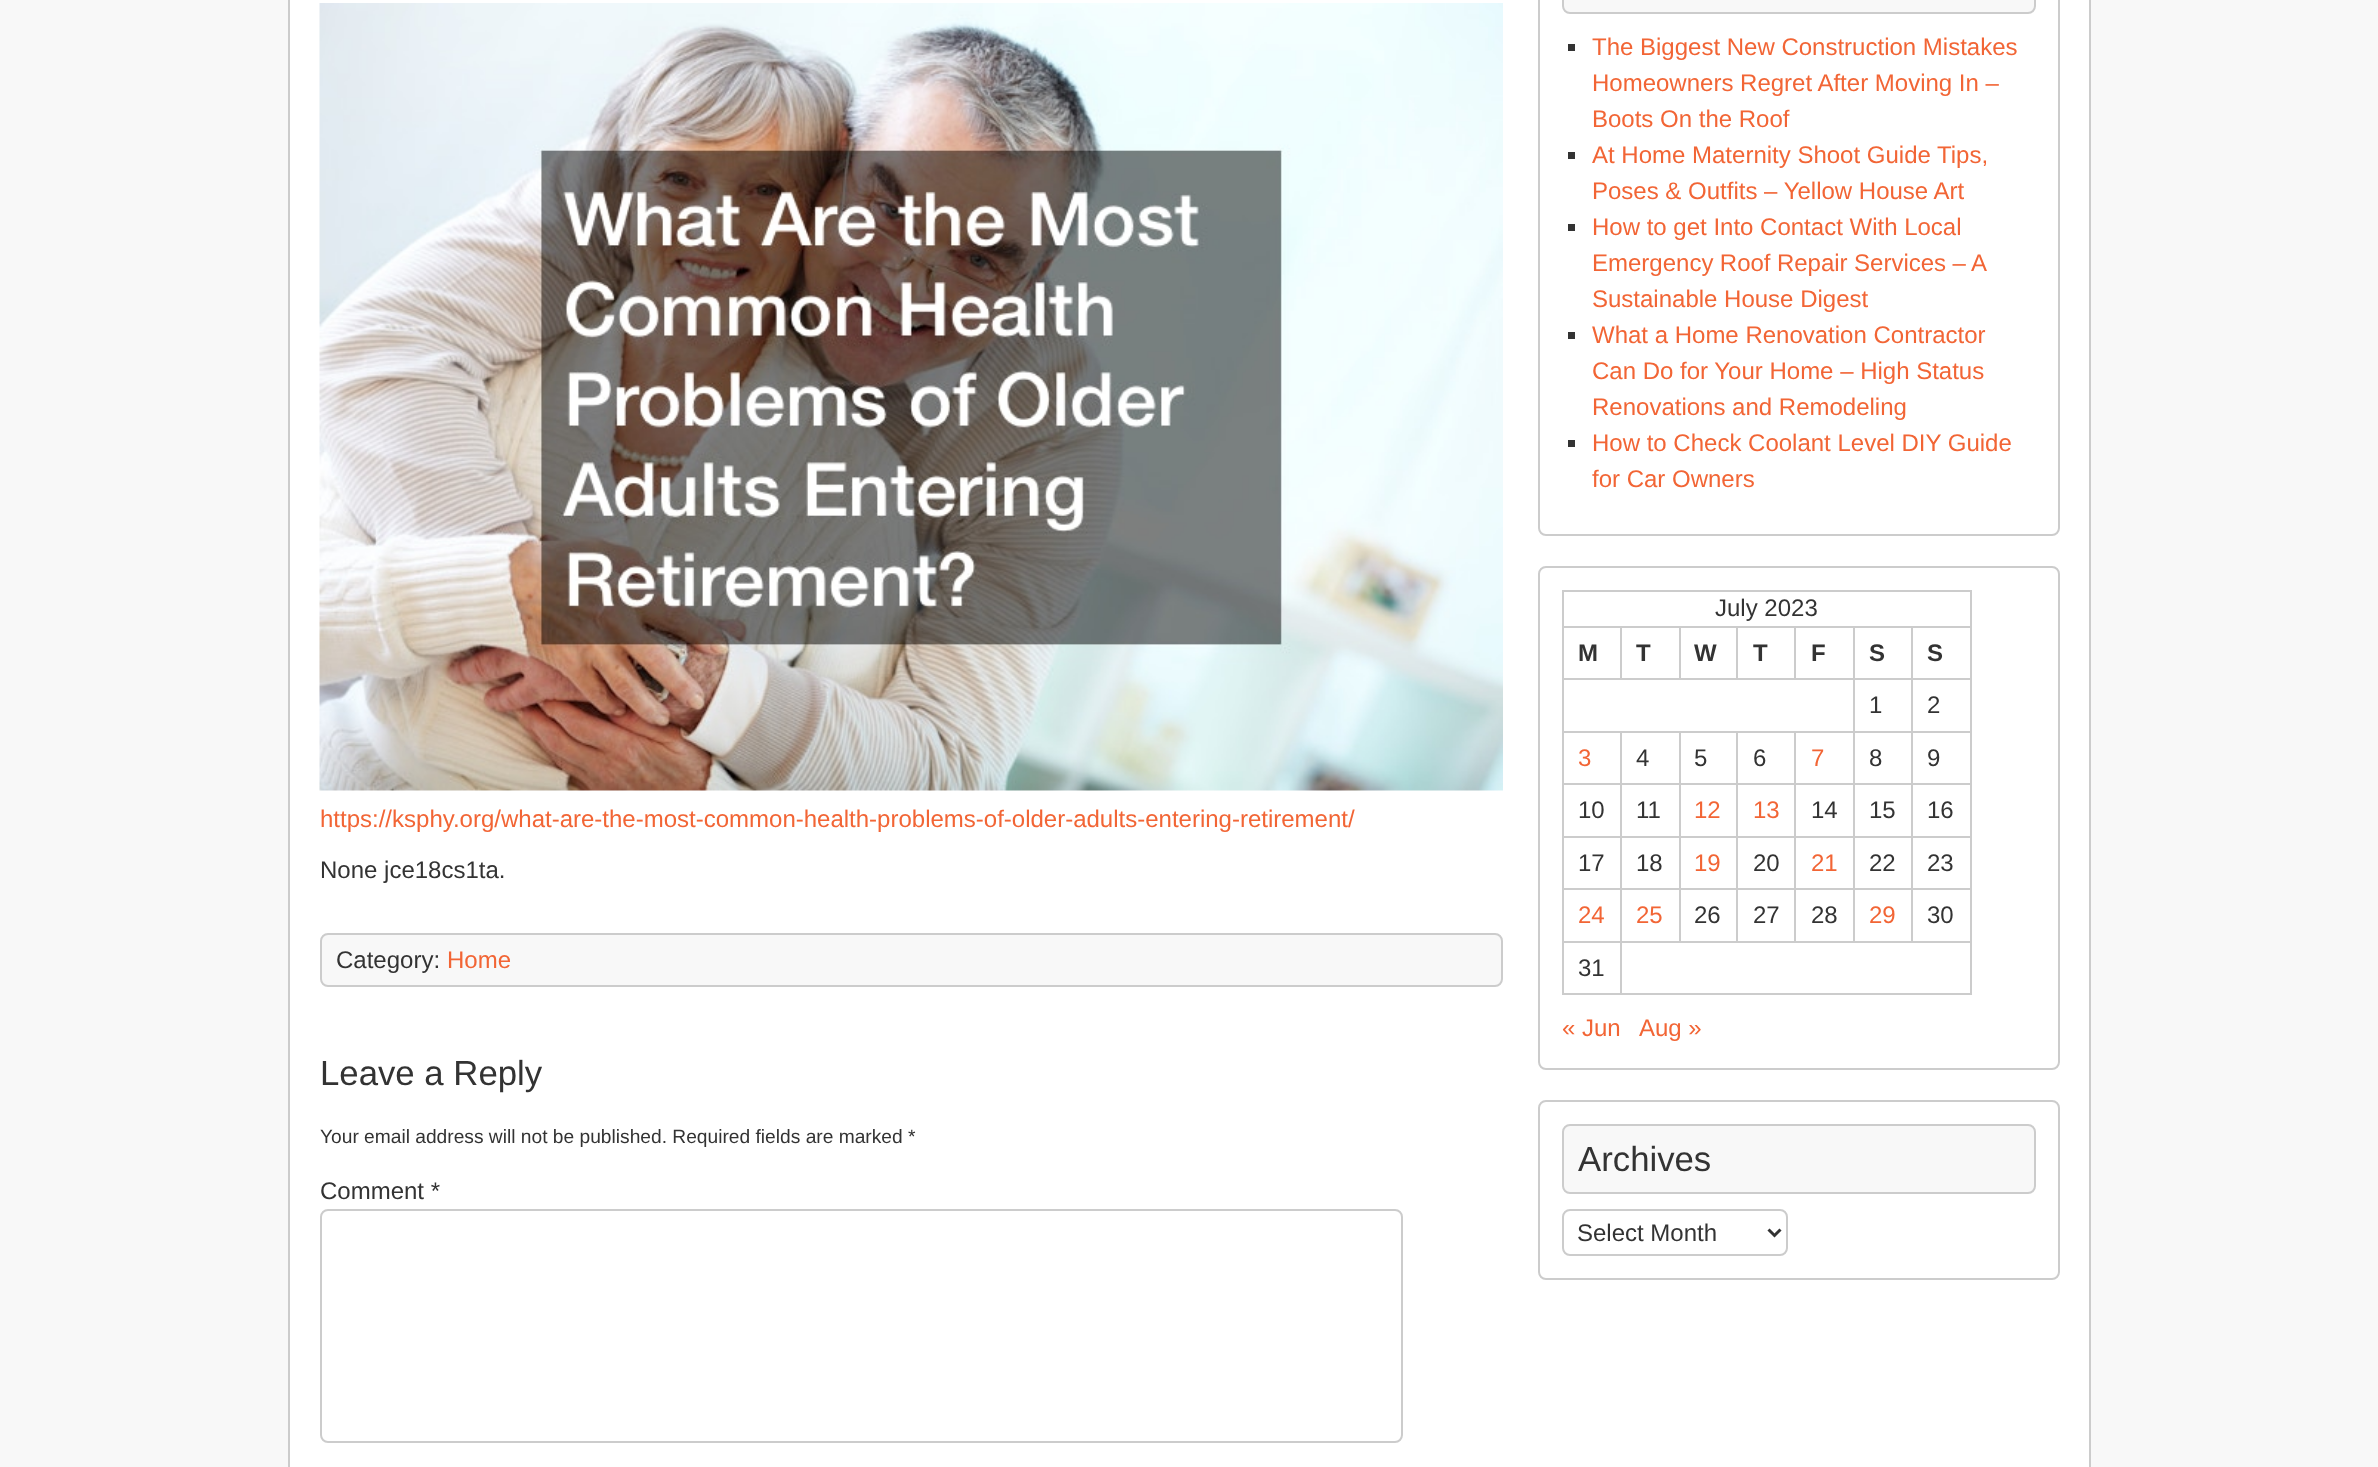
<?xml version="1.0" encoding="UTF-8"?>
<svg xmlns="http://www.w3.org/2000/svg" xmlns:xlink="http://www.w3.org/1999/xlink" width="2378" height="1467">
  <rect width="100%" height="100%" fill="#f8f8f8" />
  <rect x="289" y="-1" width="1801" height="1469" fill="#ffffff" stroke="#cccccc" stroke-width="2" />
  <image x="319" y="3" width="1184" height="788" xlink:href="image1.png" />
  <rect x="321" y="934" width="1181" height="52" rx="7" fill="#f8f8f8" stroke="#cccccc" stroke-width="2" />
  <rect x="321" y="1210" width="1081" height="232" rx="7" fill="none" stroke="#cccccc" stroke-width="2" />
  <rect x="1539" y="-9" width="520" height="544" rx="7" fill="none" stroke="#cccccc" stroke-width="2" />
  <rect x="1563" y="-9" width="472" height="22" rx="7" fill="#f8f8f8" stroke="#cccccc" stroke-width="2" />
  <rect x="1568" y="44" width="7" height="7" fill="#333333" />
  <rect x="1568" y="152" width="7" height="7" fill="#333333" />
  <rect x="1568" y="224" width="7" height="7" fill="#333333" />
  <rect x="1568" y="332" width="7" height="7" fill="#333333" />
  <rect x="1568" y="440" width="7" height="7" fill="#333333" />
  <rect x="1539" y="567" width="520" height="502" rx="7" fill="none" stroke="#cccccc" stroke-width="2" />
  <rect x="1562" y="590" width="409" height="2" fill="#cccccc" />
  <rect x="1970" y="590" width="2" height="405" fill="#cccccc" />
  <rect x="1562" y="993" width="409" height="2" fill="#cccccc" />
  <rect x="1562" y="590" width="2" height="405" fill="#cccccc" />
  <rect x="1911" y="626" width="60" height="2" fill="#cccccc" />
  <rect x="1911" y="678" width="60" height="2" fill="#cccccc" />
  <rect x="1911" y="731" width="60" height="2" fill="#cccccc" />
  <rect x="1911" y="783" width="60" height="2" fill="#cccccc" />
  <rect x="1911" y="836" width="60" height="2" fill="#cccccc" />
  <rect x="1911" y="888" width="60" height="2" fill="#cccccc" />
  <rect x="1620" y="941" width="351" height="2" fill="#cccccc" />
  <rect x="1911" y="888" width="2" height="54" fill="#cccccc" />
  <rect x="1853" y="888" width="60" height="2" fill="#cccccc" />
  <rect x="1911" y="836" width="2" height="54" fill="#cccccc" />
  <rect x="1853" y="836" width="60" height="2" fill="#cccccc" />
  <rect x="1911" y="783" width="2" height="54" fill="#cccccc" />
  <rect x="1853" y="783" width="60" height="2" fill="#cccccc" />
  <rect x="1911" y="731" width="2" height="54" fill="#cccccc" />
  <rect x="1853" y="731" width="60" height="2" fill="#cccccc" />
  <rect x="1911" y="678" width="2" height="54" fill="#cccccc" />
  <rect x="1853" y="678" width="60" height="2" fill="#cccccc" />
  <rect x="1911" y="626" width="2" height="54" fill="#cccccc" />
  <rect x="1853" y="626" width="60" height="2" fill="#cccccc" />
  <rect x="1853" y="888" width="2" height="54" fill="#cccccc" />
  <rect x="1794" y="888" width="60" height="2" fill="#cccccc" />
  <rect x="1853" y="836" width="2" height="54" fill="#cccccc" />
  <rect x="1794" y="836" width="60" height="2" fill="#cccccc" />
  <rect x="1853" y="783" width="2" height="54" fill="#cccccc" />
  <rect x="1794" y="783" width="60" height="2" fill="#cccccc" />
  <rect x="1853" y="731" width="2" height="54" fill="#cccccc" />
  <rect x="1794" y="731" width="60" height="2" fill="#cccccc" />
  <rect x="1853" y="678" width="2" height="54" fill="#cccccc" />
  <rect x="1562" y="678" width="292" height="2" fill="#cccccc" />
  <rect x="1853" y="626" width="2" height="54" fill="#cccccc" />
  <rect x="1794" y="626" width="60" height="2" fill="#cccccc" />
  <rect x="1794" y="626" width="2" height="54" fill="#cccccc" />
  <rect x="1736" y="626" width="60" height="2" fill="#cccccc" />
  <rect x="1736" y="626" width="2" height="54" fill="#cccccc" />
  <rect x="1679" y="626" width="58" height="2" fill="#cccccc" />
  <rect x="1679" y="626" width="2" height="54" fill="#cccccc" />
  <rect x="1620" y="626" width="60" height="2" fill="#cccccc" />
  <rect x="1620" y="626" width="2" height="54" fill="#cccccc" />
  <rect x="1562" y="626" width="60" height="2" fill="#cccccc" />
  <rect x="1794" y="888" width="2" height="54" fill="#cccccc" />
  <rect x="1736" y="888" width="60" height="2" fill="#cccccc" />
  <rect x="1794" y="836" width="2" height="54" fill="#cccccc" />
  <rect x="1736" y="836" width="60" height="2" fill="#cccccc" />
  <rect x="1794" y="783" width="2" height="54" fill="#cccccc" />
  <rect x="1736" y="783" width="60" height="2" fill="#cccccc" />
  <rect x="1794" y="731" width="2" height="54" fill="#cccccc" />
  <rect x="1736" y="731" width="60" height="2" fill="#cccccc" />
  <rect x="1736" y="888" width="2" height="54" fill="#cccccc" />
  <rect x="1679" y="888" width="58" height="2" fill="#cccccc" />
  <rect x="1736" y="836" width="2" height="54" fill="#cccccc" />
  <rect x="1679" y="836" width="58" height="2" fill="#cccccc" />
  <rect x="1736" y="783" width="2" height="54" fill="#cccccc" />
  <rect x="1679" y="783" width="58" height="2" fill="#cccccc" />
  <rect x="1736" y="731" width="2" height="54" fill="#cccccc" />
  <rect x="1679" y="731" width="58" height="2" fill="#cccccc" />
  <rect x="1679" y="888" width="2" height="54" fill="#cccccc" />
  <rect x="1620" y="888" width="60" height="2" fill="#cccccc" />
  <rect x="1679" y="836" width="2" height="54" fill="#cccccc" />
  <rect x="1620" y="836" width="60" height="2" fill="#cccccc" />
  <rect x="1679" y="783" width="2" height="54" fill="#cccccc" />
  <rect x="1620" y="783" width="60" height="2" fill="#cccccc" />
  <rect x="1679" y="731" width="2" height="54" fill="#cccccc" />
  <rect x="1620" y="731" width="60" height="2" fill="#cccccc" />
  <rect x="1620" y="941" width="2" height="54" fill="#cccccc" />
  <rect x="1562" y="941" width="60" height="2" fill="#cccccc" />
  <rect x="1620" y="888" width="2" height="54" fill="#cccccc" />
  <rect x="1562" y="888" width="60" height="2" fill="#cccccc" />
  <rect x="1620" y="836" width="2" height="54" fill="#cccccc" />
  <rect x="1562" y="836" width="60" height="2" fill="#cccccc" />
  <rect x="1620" y="783" width="2" height="54" fill="#cccccc" />
  <rect x="1562" y="783" width="60" height="2" fill="#cccccc" />
  <rect x="1620" y="731" width="2" height="54" fill="#cccccc" />
  <rect x="1562" y="731" width="60" height="2" fill="#cccccc" />
  <rect x="1539" y="1101" width="520" height="178" rx="7" fill="none" stroke="#cccccc" stroke-width="2" />
  <rect x="1563" y="1125" width="472" height="68" rx="7" fill="#f8f8f8" stroke="#cccccc" stroke-width="2" />
  <rect x="1563" y="1210" width="224" height="45" rx="7" fill="none" stroke="#cccccc" stroke-width="2" />
  <path d="M 1768.5 1229.5 l 6 6 l 6 -6" fill="none" stroke="#333333" stroke-width="3" />
  <text x="320" y="827" style="font-family: Liberation Sans; font-size: 24px; fill: #f26535">https://ksphy.org/what-are-the-most-common-health-problems-of-older-adults-entering-retirement/</text>
  <text x="320" y="878" style="font-family: Liberation Sans; font-size: 24px; fill: #333333">None jce18cs1ta.</text>
  <text x="336" y="968" style="font-family: Liberation Sans; font-size: 24px; fill: #333333">Category:</text>
  <text x="447" y="968" style="font-family: Liberation Sans; font-size: 24px; fill: #f26535">Home</text>
  <text x="320" y="1085" style="font-family: Liberation Sans; font-size: 34.75px; fill: #333333">Leave a Reply</text>
  <text x="320" y="1143" style="font-family: Liberation Sans; font-size: 19.2px; fill: #333333">Your email address will not be published. Required fields are marked *</text>
  <text x="320" y="1199" style="font-family: Liberation Sans; font-size: 24px; fill: #333333">Comment *</text>
  <text x="1592" y="55" style="font-family: Liberation Sans; font-size: 24px; fill: #f26535">The Biggest New Construction Mistakes</text>
  <text x="1592" y="91" style="font-family: Liberation Sans; font-size: 24px; fill: #f26535">Homeowners Regret After Moving In –</text>
  <text x="1592" y="127" style="font-family: Liberation Sans; font-size: 24px; fill: #f26535">Boots On the Roof</text>
  <text x="1592" y="163" style="font-family: Liberation Sans; font-size: 24px; fill: #f26535">At Home Maternity Shoot Guide</text>
  <text x="1937" y="163" style="font-family: Liberation Sans; font-size: 24px; fill: #f26535">Tips,</text>
  <text x="1592" y="199" style="font-family: Liberation Sans; font-size: 24px; fill: #f26535">Poses &amp; Outfits – Yellow House Art</text>
  <text x="1592" y="235" style="font-family: Liberation Sans; font-size: 24px; fill: #f26535">How to get Into Contact With Local</text>
  <text x="1592" y="271" word-spacing="-0.25" style="font-family: Liberation Sans; font-size: 24px; fill: #f26535">Emergency Roof Repair Services – A</text>
  <text x="1592" y="307" style="font-family: Liberation Sans; font-size: 24px; fill: #f26535">Sustainable House Digest</text>
  <text x="1592" y="343" style="font-family: Liberation Sans; font-size: 24px; fill: #f26535">What a Home Renovation Contractor</text>
  <text x="1592" y="379" style="font-family: Liberation Sans; font-size: 24px; fill: #f26535">Can Do for Your Home – High Status</text>
  <text x="1592" y="415" style="font-family: Liberation Sans; font-size: 24px; fill: #f26535">Renovations and Remodeling</text>
  <text x="1592" y="451" style="font-family: Liberation Sans; font-size: 24px; fill: #f26535">How to Check Coolant Level DIY Guide</text>
  <text x="1592" y="487" style="font-family: Liberation Sans; font-size: 24px; fill: #f26535">for Car Owners</text>
  <text x="1715" y="616" style="font-family: Liberation Sans; font-size: 24px; fill: #333333">July 2023</text>
  <text x="1578" y="661" style="font-family: Liberation Sans; font-size: 24px; font-weight: bold; fill: #333333">M</text>
  <text x="1636" y="661" style="font-family: Liberation Sans; font-size: 24px; font-weight: bold; fill: #333333">T</text>
  <text x="1694" y="661" style="font-family: Liberation Sans; font-size: 24px; font-weight: bold; fill: #333333">W</text>
  <text x="1753" y="661" style="font-family: Liberation Sans; font-size: 24px; font-weight: bold; fill: #333333">T</text>
  <text x="1811" y="661" style="font-family: Liberation Sans; font-size: 24px; font-weight: bold; fill: #333333">F</text>
  <text x="1869" y="661" style="font-family: Liberation Sans; font-size: 24px; font-weight: bold; fill: #333333">S</text>
  <text x="1927" y="661" style="font-family: Liberation Sans; font-size: 24px; font-weight: bold; fill: #333333">S</text>
  <text x="1869" y="713" style="font-family: Liberation Sans; font-size: 24px; fill: #333333">1</text>
  <text x="1927" y="713" style="font-family: Liberation Sans; font-size: 24px; fill: #333333">2</text>
  <text x="1578" y="766" style="font-family: Liberation Sans; font-size: 24px; fill: #f26535">3</text>
  <text x="1636" y="766" style="font-family: Liberation Sans; font-size: 24px; fill: #333333">4</text>
  <text x="1694" y="766" style="font-family: Liberation Sans; font-size: 24px; fill: #333333">5</text>
  <text x="1753" y="766" style="font-family: Liberation Sans; font-size: 24px; fill: #333333">6</text>
  <text x="1811" y="766" style="font-family: Liberation Sans; font-size: 24px; fill: #f26535">7</text>
  <text x="1869" y="766" style="font-family: Liberation Sans; font-size: 24px; fill: #333333">8</text>
  <text x="1927" y="766" style="font-family: Liberation Sans; font-size: 24px; fill: #333333">9</text>
  <text x="1578" y="818" style="font-family: Liberation Sans; font-size: 24px; fill: #333333">10</text>
  <text x="1636" y="818" style="font-family: Liberation Sans; font-size: 24px; fill: #333333">11</text>
  <text x="1694" y="818" style="font-family: Liberation Sans; font-size: 24px; fill: #f26535">12</text>
  <text x="1753" y="818" style="font-family: Liberation Sans; font-size: 24px; fill: #f26535">13</text>
  <text x="1811" y="818" style="font-family: Liberation Sans; font-size: 24px; fill: #333333">14</text>
  <text x="1869" y="818" style="font-family: Liberation Sans; font-size: 24px; fill: #333333">15</text>
  <text x="1927" y="818" style="font-family: Liberation Sans; font-size: 24px; fill: #333333">16</text>
  <text x="1578" y="871" style="font-family: Liberation Sans; font-size: 24px; fill: #333333">17</text>
  <text x="1636" y="871" style="font-family: Liberation Sans; font-size: 24px; fill: #333333">18</text>
  <text x="1694" y="871" style="font-family: Liberation Sans; font-size: 24px; fill: #f26535">19</text>
  <text x="1753" y="871" style="font-family: Liberation Sans; font-size: 24px; fill: #333333">20</text>
  <text x="1811" y="871" style="font-family: Liberation Sans; font-size: 24px; fill: #f26535">21</text>
  <text x="1869" y="871" style="font-family: Liberation Sans; font-size: 24px; fill: #333333">22</text>
  <text x="1927" y="871" style="font-family: Liberation Sans; font-size: 24px; fill: #333333">23</text>
  <text x="1578" y="923" style="font-family: Liberation Sans; font-size: 24px; fill: #f26535">24</text>
  <text x="1636" y="923" style="font-family: Liberation Sans; font-size: 24px; fill: #f26535">25</text>
  <text x="1694" y="923" style="font-family: Liberation Sans; font-size: 24px; fill: #333333">26</text>
  <text x="1753" y="923" style="font-family: Liberation Sans; font-size: 24px; fill: #333333">27</text>
  <text x="1811" y="923" style="font-family: Liberation Sans; font-size: 24px; fill: #333333">28</text>
  <text x="1869" y="923" style="font-family: Liberation Sans; font-size: 24px; fill: #f26535">29</text>
  <text x="1927" y="923" style="font-family: Liberation Sans; font-size: 24px; fill: #333333">30</text>
  <text x="1578" y="976" style="font-family: Liberation Sans; font-size: 24px; fill: #333333">31</text>
  <text x="1562" y="1036" style="font-family: Liberation Sans; font-size: 24px; fill: #f26535">« Jun</text>
  <text x="1639" y="1036" style="font-family: Liberation Sans; font-size: 24px; fill: #f26535">Aug »</text>
  <text x="1578" y="1171" style="font-family: Liberation Sans; font-size: 34.75px; fill: #333333">Archives</text>
  <text x="1577" y="1241" style="font-family: Liberation Sans; font-size: 24px; fill: #333333">Select Month</text>
</svg>
